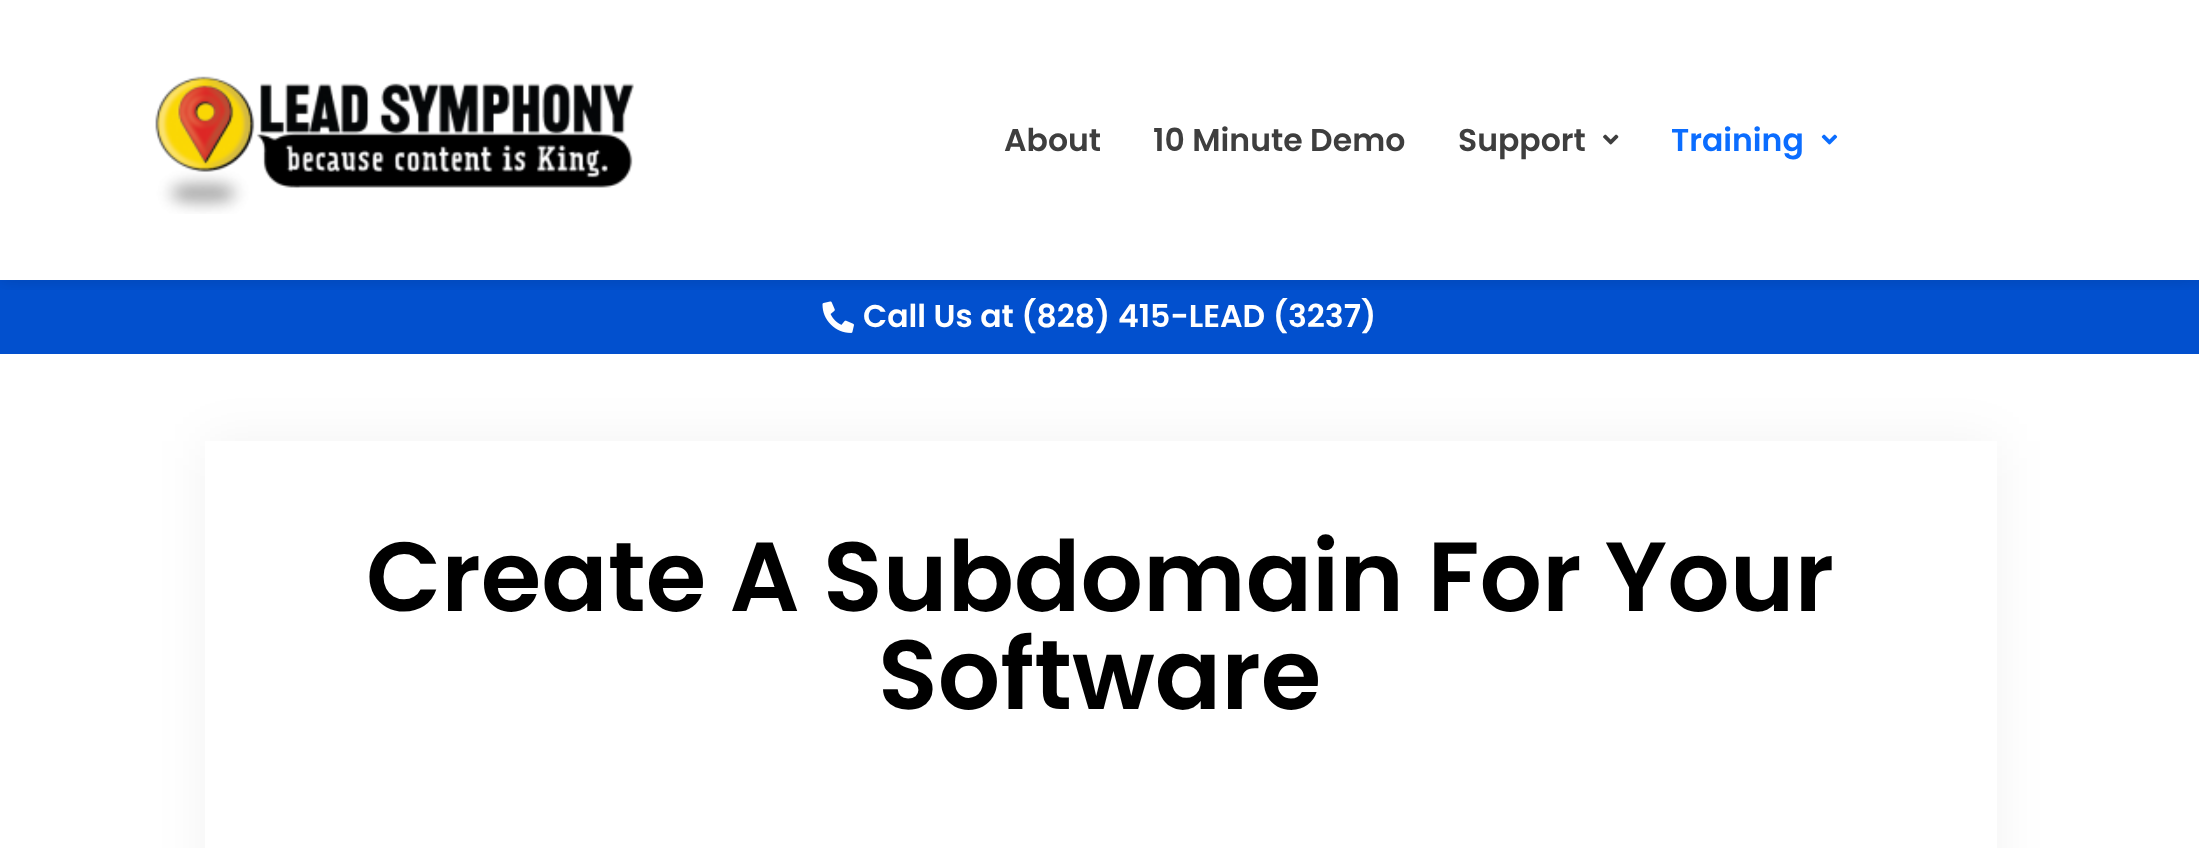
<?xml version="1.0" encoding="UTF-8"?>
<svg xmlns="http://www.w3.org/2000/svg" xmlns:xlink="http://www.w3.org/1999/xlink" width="2199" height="848">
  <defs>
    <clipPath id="clip1"><rect x="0" y="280" width="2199" height="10" /></clipPath>
  </defs>
  <rect width="100%" height="100%" fill="#ffffff" />
  <rect y="280" width="2199" height="74" fill="#0250ce" />
  <image x="822" y="301" width="32" height="32" xlink:href="image4.png" />
  <g clip-path="url(#clip1)">
    <rect width="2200" height="280" fill="#000000" fill-opacity="0.14" filter="blur(9px)" />
  </g>
  <image x="155" y="76" width="479" height="138" xlink:href="image1.png" />
  <image x="1603" y="134" width="16" height="11" xlink:href="image2.png" />
  <image x="1821" y="134" width="17" height="11" xlink:href="image3.png" />
  <rect x="205" y="441" width="1792" height="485" fill="#000000" fill-opacity="0.05" filter="blur(26px)" />
  <rect x="205" y="441" width="1792" height="407" fill="#ffffff" />
  <text x="1004" y="151" style="font-family: Poppins; font-size: 31.5px; font-weight: 600; fill: #3e3e3e">About</text>
  <text x="1153" y="151" style="font-family: Poppins; font-size: 31.5px; font-weight: 600; fill: #3e3e3e">10 Minute Demo</text>
  <text x="1458" y="151" style="font-family: Poppins; font-size: 31.5px; font-weight: 600; fill: #3e3e3e">Support</text>
  <text x="1671" y="151" style="font-family: Poppins; font-size: 31.5px; font-weight: 600; fill: #0b6dff">Training</text>
  <text x="863" y="327" style="font-family: Poppins; font-size: 31.5px; font-weight: 600; fill: #ffffff">Call Us at (828) 415-LEAD (3237)</text>
  <text x="366" y="611" style="font-family: Poppins; font-size: 98px; font-weight: 600; fill: #000000">Create A Subdomain For Your</text>
  <text x="878" y="709" style="font-family: Poppins; font-size: 98px; font-weight: 600; fill: #000000">Software</text>
</svg>
